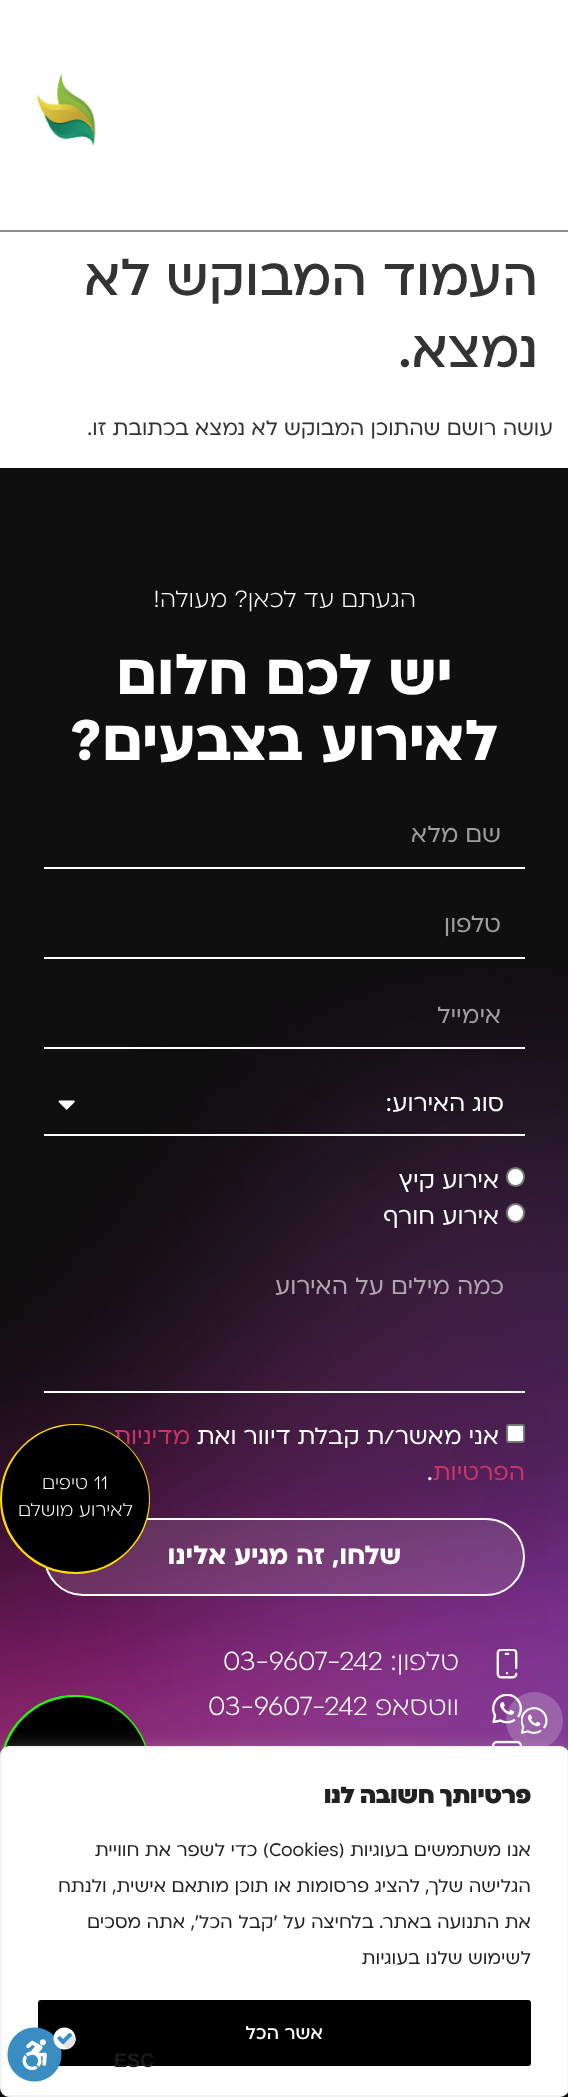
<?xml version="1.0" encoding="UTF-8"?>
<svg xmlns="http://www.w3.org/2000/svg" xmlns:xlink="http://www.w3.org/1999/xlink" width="568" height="2097">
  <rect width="100%" height="100%" fill="#ffffff" />
  <rect y="230" width="568" height="2" fill="#8d8d8d" />
  <image x="36" y="73" width="60" height="73" xlink:href="image1.png" />
  <rect y="468" width="568" height="1287" fill="#0f0f0f" />
  <image x="0" y="969" width="568" height="786" xlink:href="image2.png" />
  <rect x="44" y="867" width="481" height="2" fill="#ffffff" />
  <rect x="44" y="957" width="481" height="2" fill="#ffffff" />
  <rect x="44" y="1047" width="481" height="2" fill="#ffffff" />
  <rect x="44" y="1134" width="481" height="2" fill="#ffffff" />
  <image x="58" y="1100" width="17" height="10" xlink:href="image3.png" />
  <rect x="507" y="1168" width="17" height="18" rx="8.5" fill="#ffffff" stroke="#767676" stroke-width="2" />
  <rect x="507" y="1204" width="17" height="18" rx="8.5" fill="#ffffff" stroke="#767676" stroke-width="2" />
  <rect x="44" y="1391" width="481" height="2" fill="#ffffff" />
  <rect x="507" y="1425" width="17" height="17" rx="2" fill="#ffffff" stroke="#767676" stroke-width="2" />
  <rect x="45" y="1519" width="479" height="76" rx="38" fill="#ffffff" fill-opacity="0.12" stroke="#ffffff" stroke-width="2" />
  <image x="496" y="1649" width="22" height="30" xlink:href="image4.png" />
  <image x="492" y="1694" width="30" height="30" xlink:href="image5.png" />
  <image x="492" y="1740" width="30" height="6" xlink:href="image6.png" />
  <rect y="2088" width="568" height="9" fill="#000000" />
  <circle cx="75" cy="1770" r="74" fill="#1fff00" stroke="#1fff00" stroke-width="2" />
  <circle cx="75.5" cy="1770.5" r="73.5" fill="#000000" />
  <circle cx="534.5" cy="1720.5" r="28.5" fill="#ffffff" fill-opacity="0.21" />
  <image x="521" y="1707" width="27" height="27" xlink:href="image7.png" />
  <rect y="1745" width="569" height="351" rx="9" fill="#acabab" fill-opacity="0.3" filter="blur(7.5px)" />
  <rect x="1" y="1747" width="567" height="349" rx="8" fill="#ffffff" stroke="#f4f4f4" stroke-width="2" />
  <rect x="39.5" y="2001.5" width="490" height="63" rx="1.5" fill="#000000" stroke="#000000" stroke-width="3" />
  <image x="7" y="2027" width="69" height="55" xlink:href="image8.png" />
  <text x="538" y="295" style="font-family: 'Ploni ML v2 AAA'; font-size: 60px; font-weight: 500; direction: rtl; fill: #333333">העמוד המבוקש לא</text>
  <text x="538" y="367" style="font-family: 'Ploni ML v2 AAA'; font-size: 60px; font-weight: 500; direction: rtl; fill: #333333">נמצא.</text>
  <text x="553" y="435" style="font-family: 'Ploni ML v2 AAA'; font-size: 24px; direction: rtl; fill: #333333">עושה רושם שהתוכן המבוקש לא נמצא בכתובת זו.</text>
  <text x="416" y="607" style="font-family: 'Ploni ML v2 AAA'; font-size: 27px; font-weight: 300; direction: rtl; fill: #ffffff">הגעתם עד לכאן? מעולה!</text>
  <text x="453" y="694" style="font-family: 'Ploni ML v2 AAA'; font-size: 66px; font-weight: bold; direction: rtl; fill: #ffffff">יש לכם חלום</text>
  <text x="498" y="760" style="font-family: 'Ploni ML v2 AAA'; font-size: 66px; font-weight: bold; direction: rtl; fill: #ffffff">לאירוע בצבעים?</text>
  <text x="501" y="842" style="font-family: 'Ploni ML v2 AAA'; font-size: 27px; direction: rtl; fill: #9f9f9f">שם מלא</text>
  <text x="501" y="932" style="font-family: 'Ploni ML v2 AAA'; font-size: 27px; direction: rtl; fill: #9f9f9f">טלפון</text>
  <text x="501" y="1023" style="font-family: 'Ploni ML v2 AAA'; font-size: 27px; direction: rtl; fill: #9f9f9f">אימייל</text>
  <text x="504" y="1111" style="font-family: 'Ploni ML v2 AAA'; font-size: 27px; direction: rtl; fill: #ffffff">סוג האירוע:</text>
  <text x="499" y="1188" style="font-family: 'Ploni ML v2 AAA'; font-size: 27px; direction: rtl; fill: #ffffff">אירוע קיץ</text>
  <text x="499" y="1224" style="font-family: 'Ploni ML v2 AAA'; font-size: 27px; direction: rtl; fill: #ffffff">אירוע חורף</text>
  <text x="504" y="1294" style="font-family: 'Ploni ML v2 AAA'; font-size: 27px; direction: rtl; fill: #afa4af">כמה מילים על האירוע</text>
  <text x="499" y="1444" style="font-family: 'Ploni ML v2 AAA'; font-size: 27px; direction: rtl; fill: #ffffff">אני מאשר/ת קבלת דיוור ואת</text>
  <text x="190" y="1444" style="font-family: 'Ploni ML v2 AAA'; font-size: 27px; direction: rtl; fill: #cc3366">מדיניות</text>
  <text x="525" y="1480" style="font-family: 'Ploni ML v2 AAA'; font-size: 27px; direction: rtl; fill: #cc3366">הפרטיות</text>
  <text x="427" y="1480" style="font-family: 'Ploni ML v2 AAA'; font-size: 27px; fill: #ffffff">.</text>
  <text x="401" y="1564" style="font-family: 'Ploni ML v2 AAA'; font-size: 30px; font-weight: bold; direction: rtl; fill: #ffffff">שלחו, זה מגיע אלינו</text>
  <text x="459" y="1670" style="font-family: 'Ploni ML v2 AAA'; font-size: 30px; font-weight: 300; direction: rtl; fill: #ffffff">טלפון:</text>
  <text x="223" y="1670" style="font-family: 'Ploni ML v2 AAA'; font-size: 30px; font-weight: 300; fill: #ffffff">03-9607-242</text>
  <text x="459" y="1715" style="font-family: 'Ploni ML v2 AAA'; font-size: 30px; font-weight: 300; direction: rtl; fill: #ffffff">ווטסאפ</text>
  <text x="208" y="1715" style="font-family: 'Ploni ML v2 AAA'; font-size: 30px; font-weight: 300; fill: #ffffff">03-9607-242</text>
  <circle cx="75" cy="1499" r="74" fill="#ffdc00" stroke="#ffdc00" stroke-width="2" />
  <circle cx="75.5" cy="1498.5" r="73.5" fill="#000000" />
  <text x="94" y="1489" style="font-family: 'Ploni ML v2 AAA'; font-size: 21px; font-weight: 300; fill: #ffffff">11</text>
  <text x="88" y="1489" style="font-family: 'Ploni ML v2 AAA'; font-size: 21px; font-weight: 300; direction: rtl; fill: #ffffff">טיפים</text>
  <text x="133" y="1516" style="font-family: 'Ploni ML v2 AAA'; font-size: 21px; font-weight: 300; direction: rtl; fill: #ffffff">לאירוע מושלם</text>
  <text x="531" y="1803" style="font-family: 'Ploni ML v2 AAA'; font-size: 27px; font-weight: 900; direction: rtl; fill: #212121">פרטיותך חשובה לנו</text>
  <text x="531" y="1856" style="font-family: 'Ploni ML v2 AAA'; font-size: 21px; direction: rtl; fill: #212121">אנו משתמשים בעוגיות (</text>
  <text x="269" y="1856" style="font-family: 'Ploni ML v2 AAA'; font-size: 21px; fill: #212121">Cookies</text>
  <text x="269" y="1856" style="font-family: 'Ploni ML v2 AAA'; font-size: 21px; direction: rtl; fill: #212121">) כדי לשפר את חוויית</text>
  <text x="531" y="1892" style="font-family: 'Ploni ML v2 AAA'; font-size: 21px; direction: rtl; fill: #212121">הגלישה שלך, להציג פרסומות או תוכן מותאם אישית, ולנתח</text>
  <text x="531" y="1928" style="font-family: 'Ploni ML v2 AAA'; font-size: 21px; direction: rtl; fill: #212121">את התנועה באתר. בלחיצה על 'קבל הכל', אתה מסכים</text>
  <text x="531" y="1964" style="font-family: 'Ploni ML v2 AAA'; font-size: 21px; direction: rtl; fill: #212121">לשימוש שלנו בעוגיות</text>
  <text x="323" y="2039" style="font-family: 'Ploni ML v2 AAA'; font-size: 21px; font-weight: 500; direction: rtl; fill: #ffffff">אשר הכל</text>
  <text x="114" y="2067" style="font-family: Liberation Sans; font-size: 19.5px; font-weight: bold; fill: #1b1b1b">ESC</text>
</svg>
